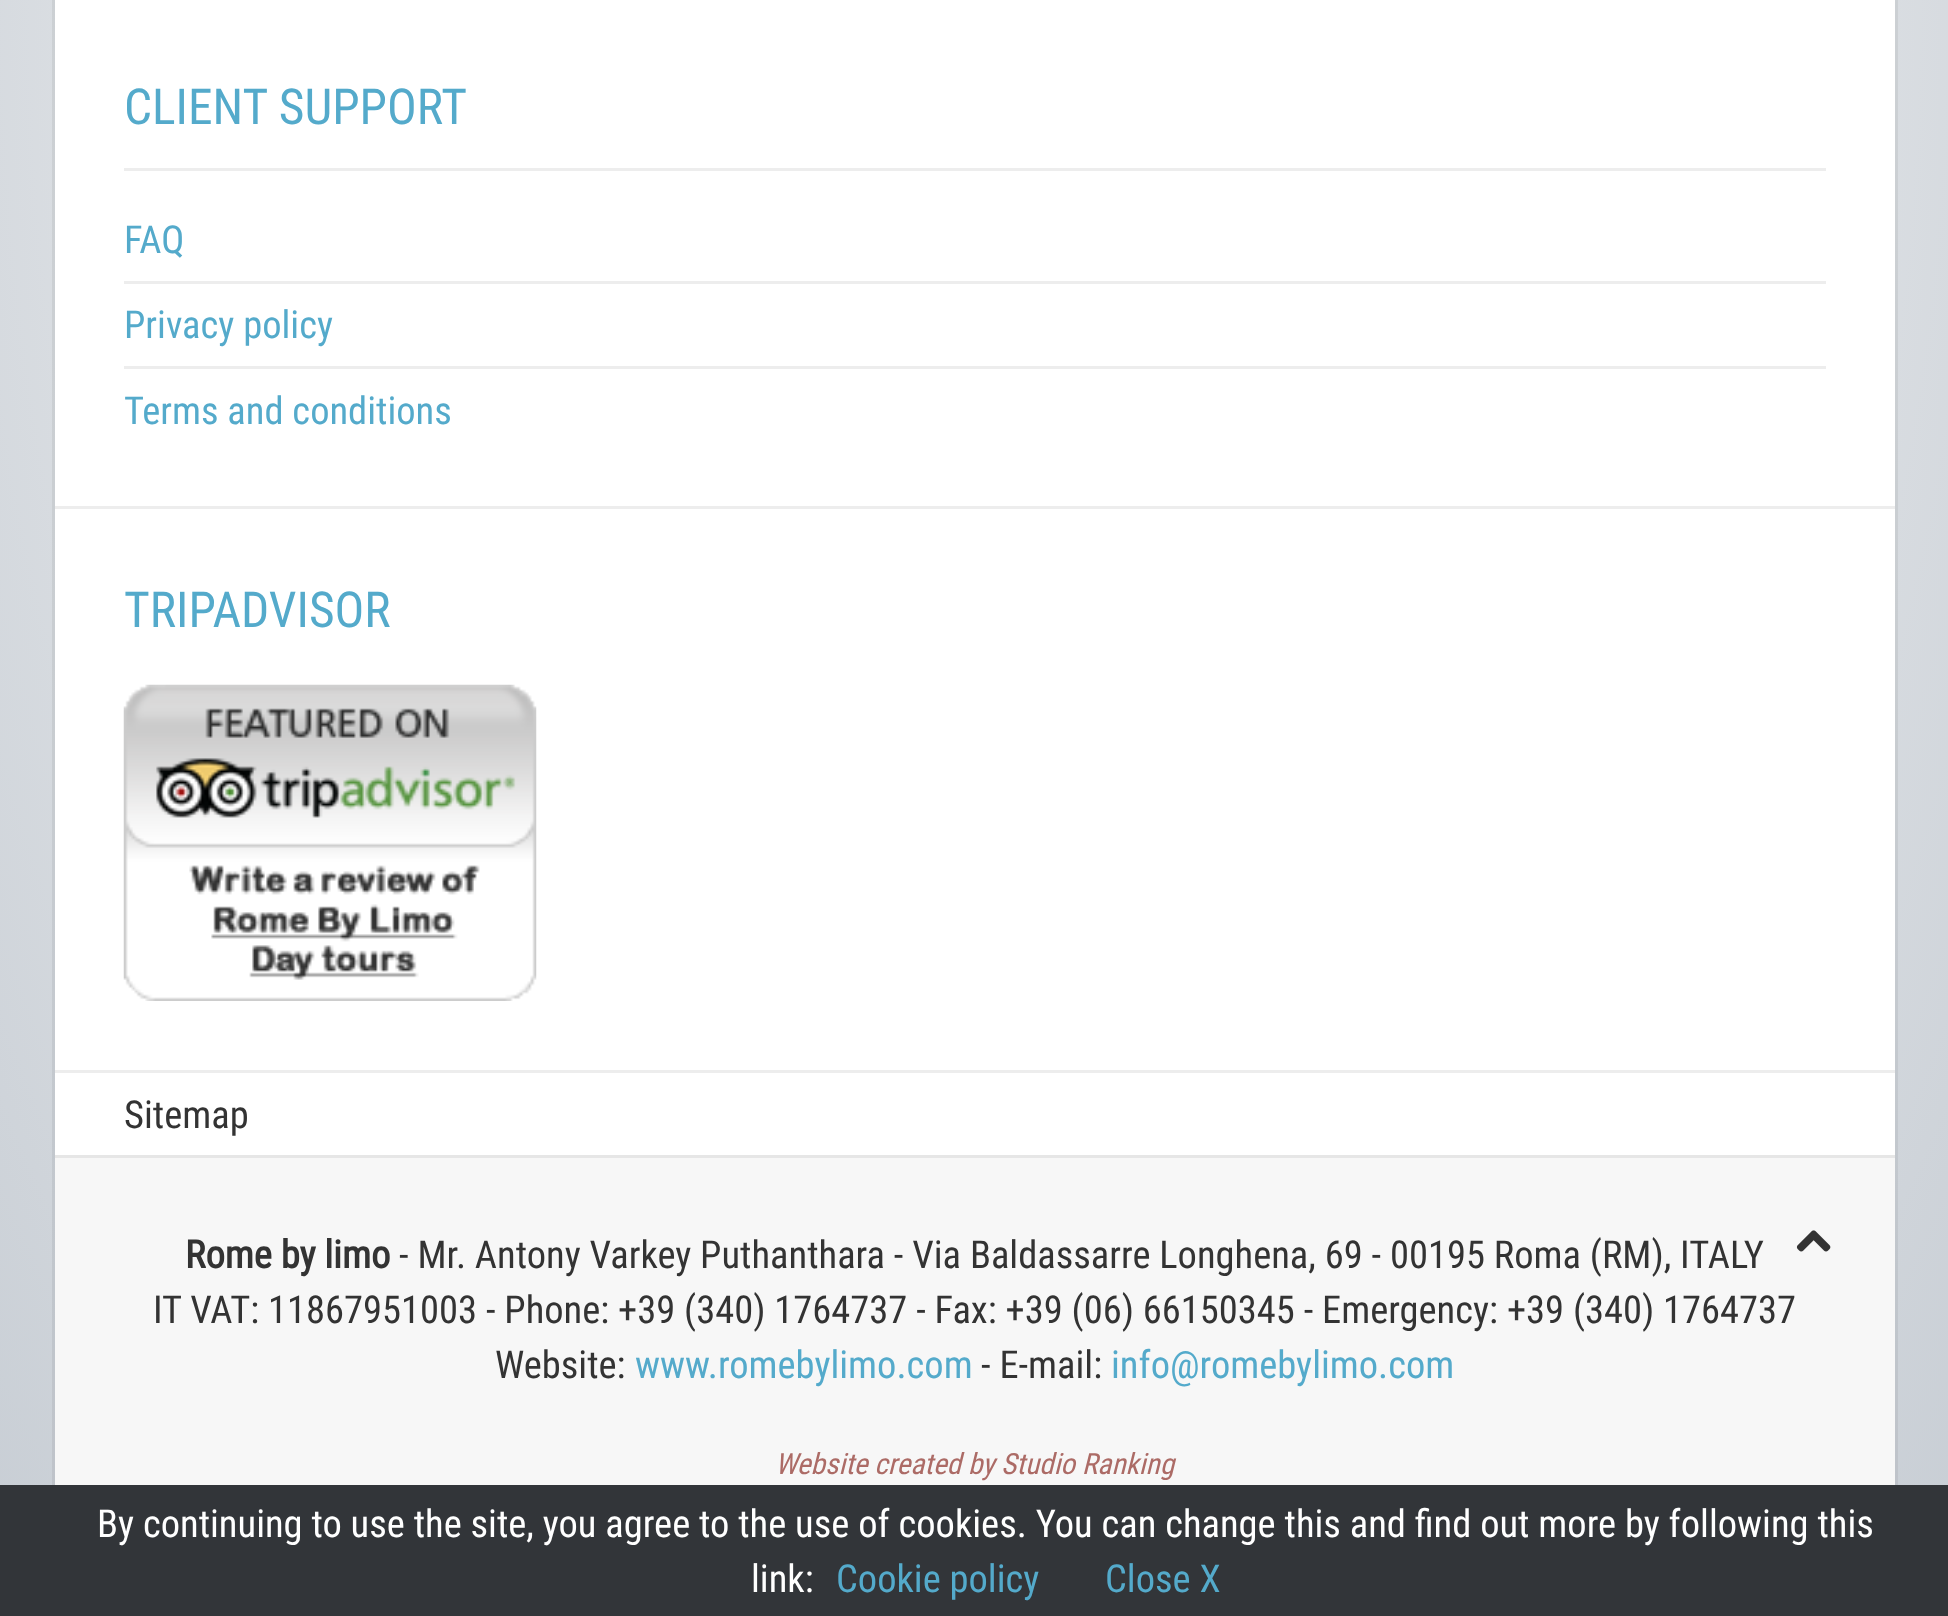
<?xml version="1.0" encoding="UTF-8"?>
<svg xmlns="http://www.w3.org/2000/svg" xmlns:xlink="http://www.w3.org/1999/xlink" width="1948" height="1616">
  <defs>
    <radialGradient id="g1" gradientUnits="userSpaceOnUse" cx="0" cy="0" r="1" gradientTransform="matrix(1379 0 0 2287 975 0)"><stop offset="0.2" stop-color="#f2f3f4" /><stop offset="1" stop-color="#c7cdd4" /></radialGradient>
  </defs>
  <rect width="100%" height="100%" fill="#ffffff" />
  <rect width="1948" height="1485" fill="url(#g1)" />
  <rect x="53.5" y="-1.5" width="1843" height="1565" fill="none" stroke="#000000" stroke-opacity="0.06" stroke-width="3" />
  <rect x="55" width="1840" height="1155" fill="#ffffff" />
  <rect x="124" y="168" width="1702" height="3" fill="#ededed" />
  <rect x="124" y="281" width="1702" height="3" fill="#ededed" />
  <rect x="124" y="366" width="1702" height="3" fill="#ededed" />
  <rect x="55" y="506" width="1840" height="3" fill="#ededed" />
  <image x="123" y="684" width="414" height="317" xlink:href="image1.png" />
  <rect x="55" y="1070" width="1840" height="3" fill="#ededed" />
  <rect x="55" y="1158" width="1840" height="327" fill="#f7f7f7" />
  <rect x="55" y="1155" width="1840" height="3" fill="#e6e6e6" />
  <image x="1796" y="1230" width="35" height="22" xlink:href="image2.png" />
  <rect y="1485" width="1948" height="131" fill="#323539" />
  <text x="124" y="124" style="font-family: Roboto Condensed; font-size: 49.5px; fill: #54aacb">CLIENT SUPPORT</text>
  <text x="124" y="253" style="font-family: Roboto Condensed; font-size: 38.5px; fill: #54aacb">FAQ</text>
  <text x="124" y="338" style="font-family: Roboto Condensed; font-size: 38.5px; fill: #54aacb">Privacy policy</text>
  <text x="124" y="424" style="font-family: Roboto Condensed; font-size: 38.5px; fill: #54aacb">Terms and conditions</text>
  <text x="124" y="627" style="font-family: Roboto Condensed; font-size: 49.5px; fill: #54aacb">TRIPADVISOR</text>
  <text x="124" y="1128" style="font-family: Roboto Condensed; font-size: 38.5px; fill: #333333">Sitemap</text>
  <text x="185" y="1268" style="font-family: Roboto Condensed; font-size: 38.5px; font-weight: bold; fill: #333333">Rome by limo</text>
  <text x="399" y="1268" style="font-family: Roboto Condensed; font-size: 38.5px; fill: #333333">- Mr. Antony Varkey Puthanthara - Via Baldassarre Longhena, 69 - 00195 Roma (RM), ITALY</text>
  <text x="153" y="1323" style="font-family: Roboto Condensed; font-size: 38.5px; fill: #333333">IT VAT: 11867951003 - Phone: +39 (340) 1764737 - Fax: +39 (06) 66150345 - Emergency: +39 (340) 1764737</text>
  <text x="495" y="1378" style="font-family: Roboto Condensed; font-size: 38.5px; fill: #333333">Website:</text>
  <text x="635" y="1378" style="font-family: Roboto Condensed; font-size: 38.5px; fill: #54aacb">www.romebylimo.com</text>
  <text x="981" y="1378" style="font-family: Roboto Condensed; font-size: 38.5px; fill: #333333">- E-mail:</text>
  <text x="1111" y="1378" style="font-family: Roboto Condensed; font-size: 38.5px; fill: #54aacb">info@romebylimo.com</text>
  <text x="775" y="1474" style="font-family: Roboto Condensed; font-size: 29.3px; font-style: italic; fill: #ac6b66">Website created by Studio Ranking</text>
  <text x="97" y="1537" style="font-family: Roboto Condensed; font-size: 38.5px; fill: #ffffff">By continuing to use the site, you agree to the use of cookies. You can change this and find out more by following this</text>
  <text x="751" y="1592" style="font-family: Roboto Condensed; font-size: 38.5px; fill: #ffffff">link:</text>
  <text x="836" y="1592" style="font-family: Roboto Condensed; font-size: 38.5px; fill: #54aacb">Cookie policy</text>
  <text x="1105" y="1592" style="font-family: Roboto Condensed; font-size: 38.5px; fill: #54aacb">Close X</text>
</svg>
